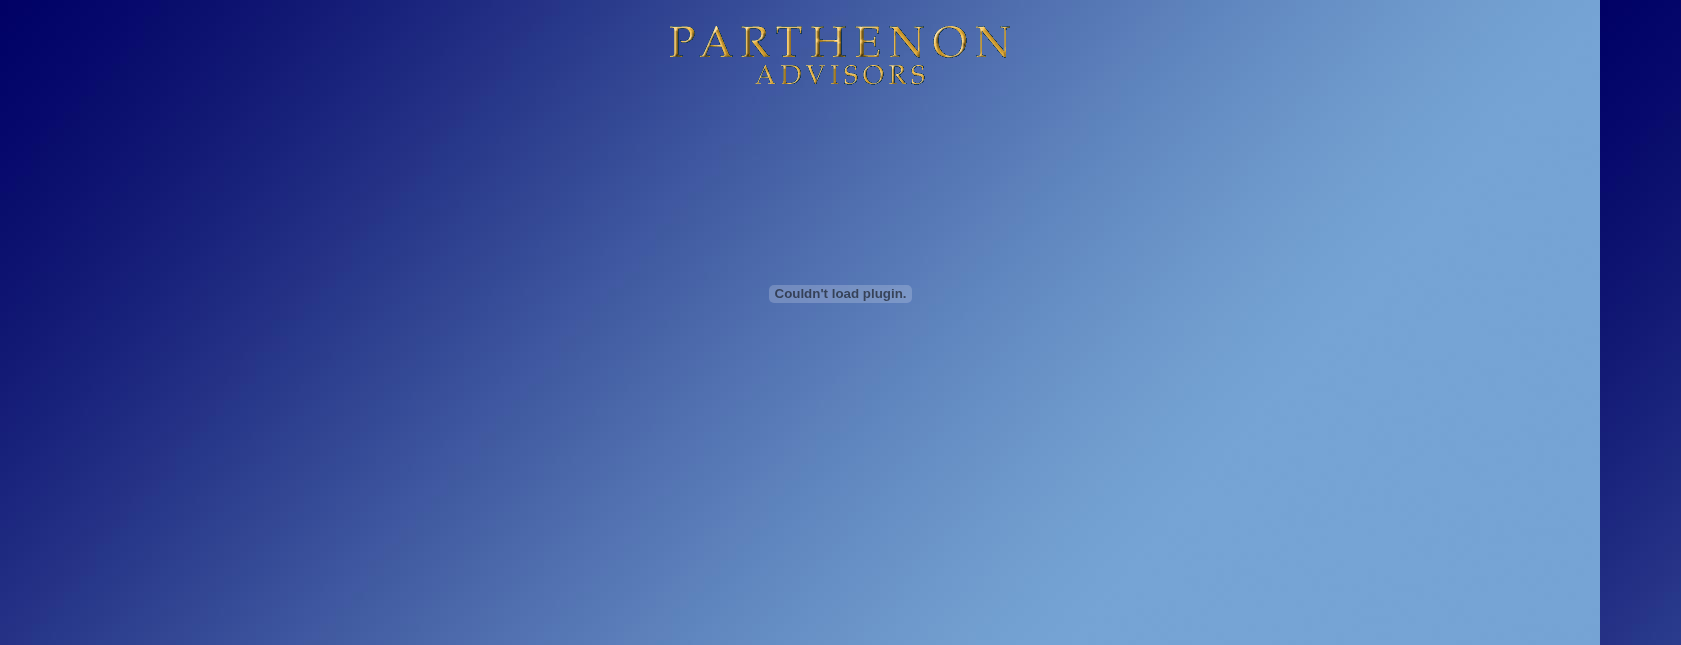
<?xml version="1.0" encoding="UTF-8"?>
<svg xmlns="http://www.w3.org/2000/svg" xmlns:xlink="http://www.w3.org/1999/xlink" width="1681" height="645">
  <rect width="100%" height="100%" fill="#ffffff" />
  <image x="0" y="0" width="1681" height="645" xlink:href="image1.png" />
  <image x="670" y="26" width="340" height="59" xlink:href="image2.png" />
  <image x="769" y="285" width="143" height="18" xlink:href="image3.png" />
</svg>
